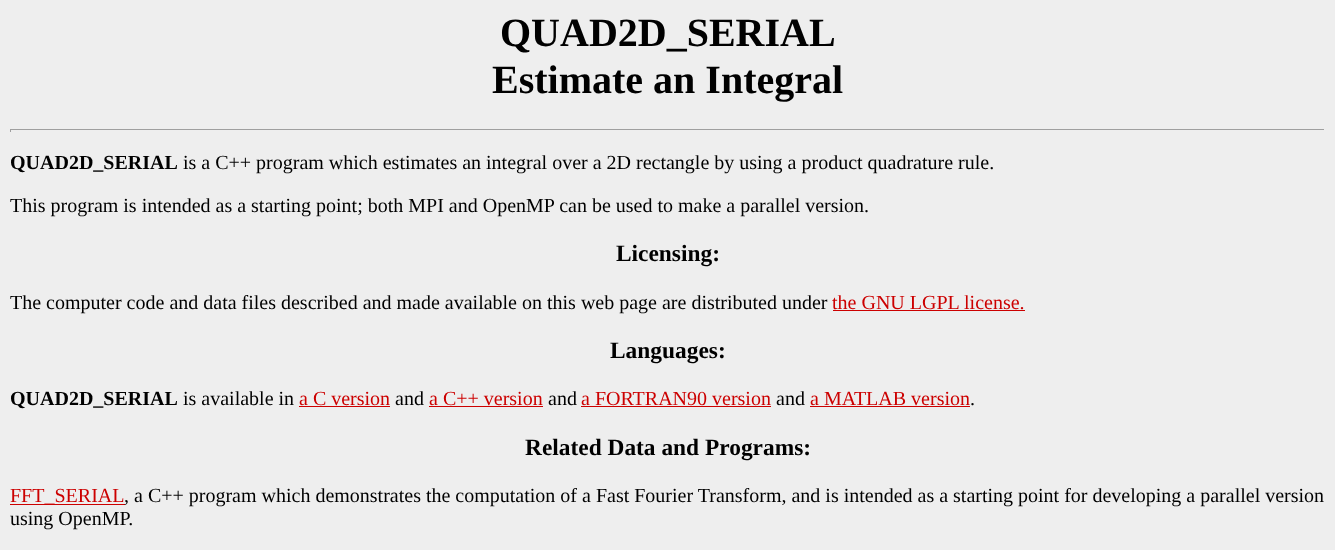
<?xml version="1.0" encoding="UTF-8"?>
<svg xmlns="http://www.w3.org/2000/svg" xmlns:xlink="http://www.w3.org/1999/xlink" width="1335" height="550">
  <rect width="100%" height="100%" fill="#eeeeee" />
  <rect x="10" y="129" width="1315" height="1" fill="#9f9f9f" />
  <rect x="1324" y="129" width="1" height="3" fill="#eeeeee" />
  <rect x="10" y="129" width="1" height="3" fill="#9f9f9f" />
  <rect x="833" y="310" width="192" height="1" fill="#cc0000" />
  <rect x="299" y="406" width="91" height="1" fill="#cc0000" />
  <rect x="429" y="406" width="114" height="1" fill="#cc0000" />
  <rect x="581" y="406" width="190" height="1" fill="#cc0000" />
  <rect x="810" y="406" width="160" height="1" fill="#cc0000" />
  <rect x="10" y="504" width="115" height="1" fill="#cc0000" />
  <text x="500" y="46" style="font-family: Liberation Serif; font-size: 40px; font-weight: bold; fill: #000000">QUAD2D_SERIAL</text>
  <text x="492" y="93" style="font-family: Liberation Serif; font-size: 40px; font-weight: bold; fill: #000000">Estimate an Integral</text>
  <text x="10" y="169" style="font-family: Liberation Serif; font-size: 20px; font-weight: bold; fill: #000000">QUAD2D_SERIAL</text>
  <text x="183" y="169" style="font-family: Liberation Serif; font-size: 20px; fill: #000000">is a C++ program which estimates an integral over a 2D rectangle by using a product quadrature rule.</text>
  <text x="10" y="212" style="font-family: Liberation Serif; font-size: 20px; fill: #000000">This program is intended as a starting point; both MPI and OpenMP can be used to make a parallel version.</text>
  <text x="616" y="261" style="font-family: Liberation Serif; font-size: 23.4px; font-weight: bold; fill: #000000">Licensing:</text>
  <text x="10" y="309" style="font-family: Liberation Serif; font-size: 20px; fill: #000000">The computer code and data files described and made available on this web page are distributed under</text>
  <text x="832" y="309" style="font-family: Liberation Serif; font-size: 20px; fill: #cc0000">the GNU LGPL license.</text>
  <text x="610" y="358" style="font-family: Liberation Serif; font-size: 23.4px; font-weight: bold; fill: #000000">Languages:</text>
  <text x="10" y="405" style="font-family: Liberation Serif; font-size: 20px; font-weight: bold; fill: #000000">QUAD2D_SERIAL</text>
  <text x="183" y="405" style="font-family: Liberation Serif; font-size: 20px; fill: #000000">is available in</text>
  <text x="299" y="405" style="font-family: Liberation Serif; font-size: 20px; fill: #cc0000">a C version</text>
  <text x="395" y="405" style="font-family: Liberation Serif; font-size: 20px; fill: #000000">and</text>
  <text x="429" y="405" style="font-family: Liberation Serif; font-size: 20px; fill: #cc0000">a C++ version</text>
  <text x="548" y="405" style="font-family: Liberation Serif; font-size: 20px; fill: #000000">and</text>
  <text x="581" y="405" style="font-family: Liberation Serif; font-size: 20px; fill: #cc0000">a FORTRAN90 version</text>
  <text x="776" y="405" style="font-family: Liberation Serif; font-size: 20px; fill: #000000">and</text>
  <text x="810" y="405" style="font-family: Liberation Serif; font-size: 20px; fill: #cc0000">a MATLAB version</text>
  <text x="970" y="405" style="font-family: Liberation Serif; font-size: 20px; fill: #000000">.</text>
  <text x="525" y="455" style="font-family: Liberation Serif; font-size: 23.4px; font-weight: bold; fill: #000000">Related Data and Programs:</text>
  <text x="10" y="502" style="font-family: Liberation Serif; font-size: 20px; fill: #cc0000">FFT_SERIAL</text>
  <text x="124" y="502" style="font-family: Liberation Serif; font-size: 20px; fill: #000000">, a C++ program which demonstrates the computation of a Fast Fourier Transform, and is intended as a starting point for developing a parallel version</text>
  <text x="10" y="525" style="font-family: Liberation Serif; font-size: 20px; fill: #000000">using OpenMP.</text>
</svg>
